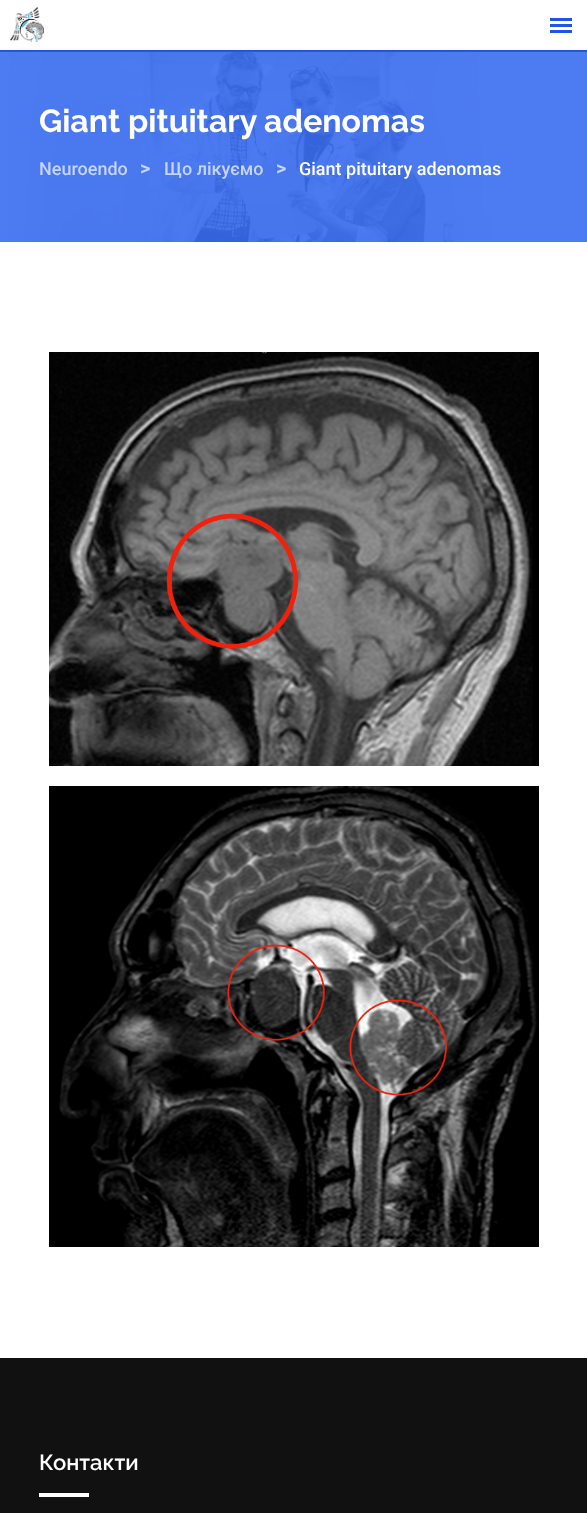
<?xml version="1.0" encoding="UTF-8"?>
<svg xmlns="http://www.w3.org/2000/svg" xmlns:xlink="http://www.w3.org/1999/xlink" width="587" height="1513">
  <rect width="100%" height="100%" fill="#ffffff" />
  <rect y="52" width="587" height="190" fill="#4d7bf2" />
  <rect y="50" width="587" height="2" fill="#2055e4" />
  <image x="10" y="7" width="34" height="35" xlink:href="image1.png" />
  <rect x="550" y="18" width="22" height="3" fill="#2055e4" />
  <rect x="550" y="24" width="22" height="3" fill="#2055e4" />
  <rect x="550" y="30" width="22" height="3" fill="#2055e4" />
  <image x="9" y="52" width="483" height="190" xlink:href="image2.png" />
  <image x="49" y="352" width="490" height="414" xlink:href="image3.png" />
  <image x="49" y="786" width="490" height="461" xlink:href="image4.png" />
  <rect y="1358" width="587" height="155" fill="#111111" />
  <rect x="39" y="1493" width="50" height="4" fill="#ffffff" />
  <text x="39" y="132" style="font-family: Raleway; font-size: 32px; font-weight: bold; fill: #ffffff">Giant pituitary adenomas</text>
  <text x="39" y="175" style="font-family: Roboto; font-size: 18px; font-weight: 500; fill: #c5d5ff">Neuroendo</text>
  <text x="140" y="175" style="font-family: Roboto; font-size: 20px; font-weight: bold; fill: #c5d5ff">&gt;</text>
  <text x="164" y="175" style="font-family: Roboto; font-size: 18px; font-weight: 500; fill: #c5d5ff">Що лікуємо</text>
  <text x="276" y="175" style="font-family: Roboto; font-size: 20px; font-weight: bold; fill: #c5d5ff">&gt;</text>
  <text x="299" y="175" style="font-family: Roboto; font-size: 18px; font-weight: 500; fill: #ffffff">Giant pituitary adenomas</text>
  <text x="39" y="1470" style="font-family: Raleway; font-size: 22px; font-weight: 600; fill: #ffffff">Контакти</text>
</svg>
